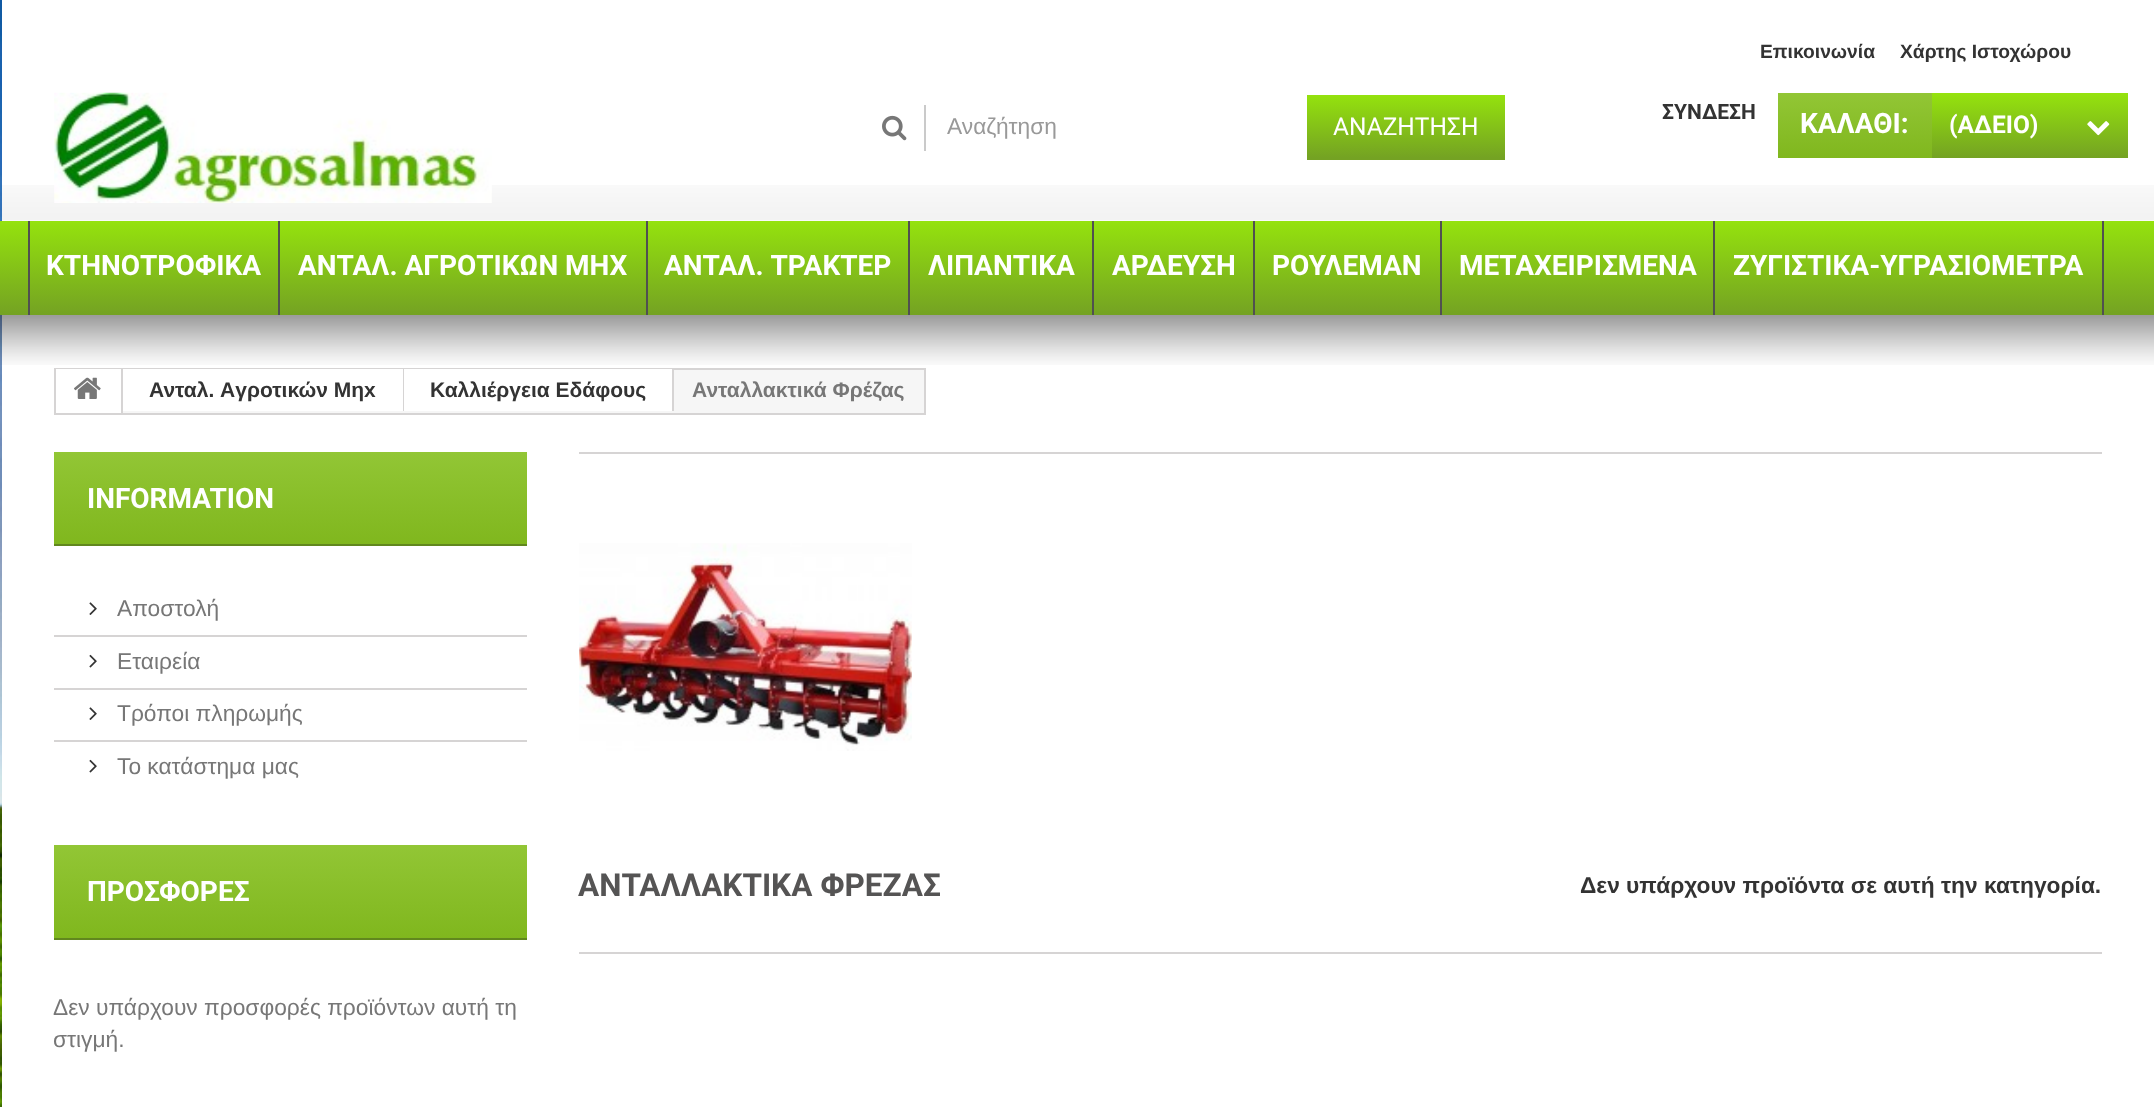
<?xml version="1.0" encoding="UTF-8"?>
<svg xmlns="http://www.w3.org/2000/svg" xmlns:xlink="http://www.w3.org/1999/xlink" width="2154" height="1107">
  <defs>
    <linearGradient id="g1" gradientUnits="userSpaceOnUse" x1="1406" y1="94" x2="1406" y2="158"><stop offset="0" stop-color="#95e30d" /><stop offset="1" stop-color="#74a223" /></linearGradient>
    <linearGradient id="g2" gradientUnits="userSpaceOnUse" x1="1953" y1="93" x2="1953" y2="158"><stop offset="0" stop-color="#95e30d" /><stop offset="1" stop-color="#74a223" /></linearGradient>
    <linearGradient id="g3" gradientUnits="userSpaceOnUse" x1="1855" y1="93" x2="1855" y2="158"><stop offset="0" stop-color="#92c635" /><stop offset="1" stop-color="#80b71e" /></linearGradient>
    <linearGradient id="g4" gradientUnits="userSpaceOnUse" x1="1077" y1="220" x2="1077" y2="315"><stop offset="0" stop-color="#95e30d" /><stop offset="1" stop-color="#74a223" /></linearGradient>
    <linearGradient id="g5" gradientUnits="userSpaceOnUse" x1="291" y1="452" x2="291" y2="544"><stop offset="0" stop-color="#92c635" /><stop offset="1" stop-color="#80b71e" /></linearGradient>
    <linearGradient id="g6" gradientUnits="userSpaceOnUse" x1="291" y1="845" x2="291" y2="938"><stop offset="0" stop-color="#92c635" /><stop offset="1" stop-color="#80b71e" /></linearGradient>
  </defs>
  <rect width="100%" height="100%" fill="#ffffff" />
  <image x="0" y="0" width="2" height="1107" xlink:href="image1.png" />
  <rect x="2" y="-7" width="2152" height="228" fill="#000000" fill-opacity="0.14" filter="blur(25.5px)" />
  <rect x="2" width="2152" height="221" fill="#ffffff" />
  <image x="2" y="185" width="2152" height="36" xlink:href="image2.png" />
  <image x="54" y="92" width="438" height="111" xlink:href="image3.png" />
  <rect x="924" y="105" width="2" height="46" fill="#cacaca" />
  <image x="882" y="115" width="25" height="26" xlink:href="image4.png" />
  <rect x="1307" y="95" width="198" height="63" fill="url(#g1)" />
  <rect x="1307" y="158" width="198" height="2" fill="#74a223" />
  <rect x="1932" y="93" width="196" height="65" fill="url(#g2)" />
  <rect x="1778" y="93" width="154" height="65" fill="url(#g3)" />
  <image x="2087" y="121" width="23" height="15" xlink:href="image5.png" />
  <rect x="2" y="315" width="2152" height="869" fill="#000000" fill-opacity="0.14" filter="blur(25.5px)" />
  <rect y="221" width="2154" height="94" fill="url(#g4)" />
  <rect x="278" y="221" width="2" height="94" fill="#505050" />
  <rect x="28" y="221" width="2" height="94" fill="#505050" />
  <rect x="646" y="221" width="2" height="94" fill="#505050" />
  <rect x="908" y="221" width="2" height="94" fill="#505050" />
  <rect x="1092" y="221" width="2" height="94" fill="#505050" />
  <rect x="1253" y="221" width="2" height="94" fill="#505050" />
  <rect x="1440" y="221" width="2" height="94" fill="#505050" />
  <rect x="1713" y="221" width="2" height="94" fill="#505050" />
  <rect x="2102" y="221" width="2" height="94" fill="#505050" />
  <rect x="2" y="315" width="2152" height="792" fill="#ffffff" />
  <image x="0" y="315" width="2154" height="50" xlink:href="image6.png" />
  <rect x="123" y="370" width="801" height="43" fill="#f6f6f6" />
  <rect x="55" y="369" width="870" height="45" fill="none" stroke="#d6d4d4" stroke-width="2" />
  <rect x="56" y="369" width="65" height="1" fill="#ffffff" />
  <rect x="121" y="369" width="2" height="44" fill="#d6d4d4" />
  <image x="74" y="377" width="27" height="22" xlink:href="image7.png" />
  <rect x="123" y="369" width="280" height="42" fill="#ffffff" />
  <rect x="403" y="369" width="1" height="42" fill="#d6d4d4" />
  <rect x="404" y="369" width="268" height="42" fill="#ffffff" />
  <rect x="672" y="369" width="2" height="42" fill="#d6d4d4" />
  <rect x="54" y="452" width="473" height="92" fill="url(#g5)" />
  <rect x="54" y="544" width="473" height="2" fill="#61871e" />
  <image x="89" y="602" width="8" height="13" xlink:href="image8.png" />
  <rect x="54" y="635" width="473" height="2" fill="#d6d4d4" />
  <image x="89" y="654" width="8" height="14" xlink:href="image9.png" />
  <rect x="54" y="688" width="473" height="2" fill="#d6d4d4" />
  <image x="89" y="707" width="8" height="13" xlink:href="image8.png" />
  <rect x="54" y="740" width="473" height="2" fill="#d6d4d4" />
  <image x="89" y="759" width="8" height="14" xlink:href="image9.png" />
  <rect x="54" y="845" width="473" height="93" fill="url(#g6)" />
  <rect x="54" y="938" width="473" height="2" fill="#61871e" />
  <rect x="579" y="452" width="1523" height="2" fill="#d6d4d4" />
  <image x="579" y="543" width="333" height="208" xlink:href="image10.png" />
  <rect x="579" y="952" width="1523" height="2" fill="#d6d4d4" />
  <text x="1760" y="58" style="font-family: Liberation Sans; font-size: 19.25px; font-weight: bold; fill: #333333">Επικοινωνία</text>
  <text x="1900" y="58" style="font-family: Liberation Sans; font-size: 19.25px; font-weight: bold; fill: #333333">Χάρτης Ιστοχώρου</text>
  <text x="947" y="134" style="font-family: Liberation Sans; font-size: 22.75px; fill: #999999">Αναζήτηση</text>
  <text x="1333" y="135" style="font-family: Roboto; font-size: 24.5px; fill: #ffffff">ΑΝΑΖΗΤΗΣΗ</text>
  <text x="1662" y="119" style="font-family: Roboto; font-size: 21px; font-weight: bold; fill: #333333">ΣΥΝΔΕΣΗ</text>
  <text x="1800" y="133" style="font-family: Roboto; font-size: 28px; font-weight: bold; fill: #ffffff">ΚΑΛΑΘΙ:</text>
  <text x="1949" y="133" style="font-family: Roboto; font-size: 24.5px; font-weight: bold; fill: #ffffff">(ΑΔΕΙΟ)</text>
  <text x="46" y="275" style="font-family: Roboto; font-size: 28px; font-weight: bold; fill: #ffffff">ΚΤΗΝΟΤΡΟΦΙΚΑ</text>
  <text x="298" y="275" style="font-family: Roboto; font-size: 28px; font-weight: bold; fill: #ffffff">ΑΝΤΑΛ. AΓΡΟΤΙΚΩΝ ΜΗX</text>
  <text x="664" y="275" style="font-family: Roboto; font-size: 28px; font-weight: bold; fill: #ffffff">ΑΝΤΑΛ. ΤΡΑΚΤΕΡ</text>
  <text x="928" y="275" style="font-family: Roboto; font-size: 28px; font-weight: bold; fill: #ffffff">ΛΙΠΑΝΤΙΚΑ</text>
  <text x="1112" y="275" style="font-family: Roboto; font-size: 28px; font-weight: bold; fill: #ffffff">ΑΡΔΕΥΣΗ</text>
  <text x="1272" y="275" style="font-family: Roboto; font-size: 28px; font-weight: bold; fill: #ffffff">ΡΟΥΛΕΜΑΝ</text>
  <text x="1459" y="275" style="font-family: Roboto; font-size: 28px; font-weight: bold; fill: #ffffff">ΜΕΤΑΧΕΙΡΙΣΜΕΝΑ</text>
  <text x="1733" y="275" style="font-family: Roboto; font-size: 28px; font-weight: bold; fill: #ffffff">ΖΥΓΙΣΤΙΚΑ-ΥΓΡΑΣΙΟΜΕΤΡΑ</text>
  <text x="149" y="397" style="font-family: Liberation Sans; font-size: 21px; font-weight: bold; fill: #333333">Ανταλ. Aγροτικών Μηx</text>
  <text x="430" y="397" style="font-family: Liberation Sans; font-size: 21px; font-weight: bold; fill: #333333">Καλλιέργεια Εδάφους</text>
  <text x="692" y="397" style="font-family: Liberation Sans; font-size: 21px; font-weight: bold; fill: #777777">Ανταλλακτικά Φρέζας</text>
  <text x="87" y="508" style="font-family: Roboto; font-size: 28px; font-weight: bold; fill: #ffffff">INFORMATION</text>
  <text x="117" y="616" style="font-family: Liberation Sans; font-size: 22.75px; fill: #777777">Αποστολή</text>
  <text x="117" y="669" style="font-family: Liberation Sans; font-size: 22.75px; fill: #777777">Εταιρεία</text>
  <text x="117" y="721" style="font-family: Liberation Sans; font-size: 22.75px; fill: #777777">Τρόποι πληρωμής</text>
  <text x="117" y="774" style="font-family: Liberation Sans; font-size: 22.75px; fill: #777777">Το κατάστημα μας</text>
  <text x="87" y="901" style="font-family: Roboto; font-size: 28px; font-weight: bold; fill: #ffffff">ΠΡΟΣΦΟΡΕΣ</text>
  <text x="53" y="1015" style="font-family: Liberation Sans; font-size: 22.75px; fill: #777777">Δεν υπάρχουν προσφορές προϊόντων αυτή τη</text>
  <text x="53" y="1047" style="font-family: Liberation Sans; font-size: 22.75px; fill: #777777">στιγμή.</text>
  <text x="578" y="896" style="font-family: Roboto; font-size: 31.5px; font-weight: bold; fill: #555454">ΑΝΤΑΛΛΑΚΤΙΚΑ ΦΡΕΖΑΣ</text>
  <text x="1580" y="893" style="font-family: Liberation Sans; font-size: 22.75px; font-weight: bold; fill: #333333">Δεν υπάρχουν προϊόντα σε αυτή την κατηγορία.</text>
</svg>
